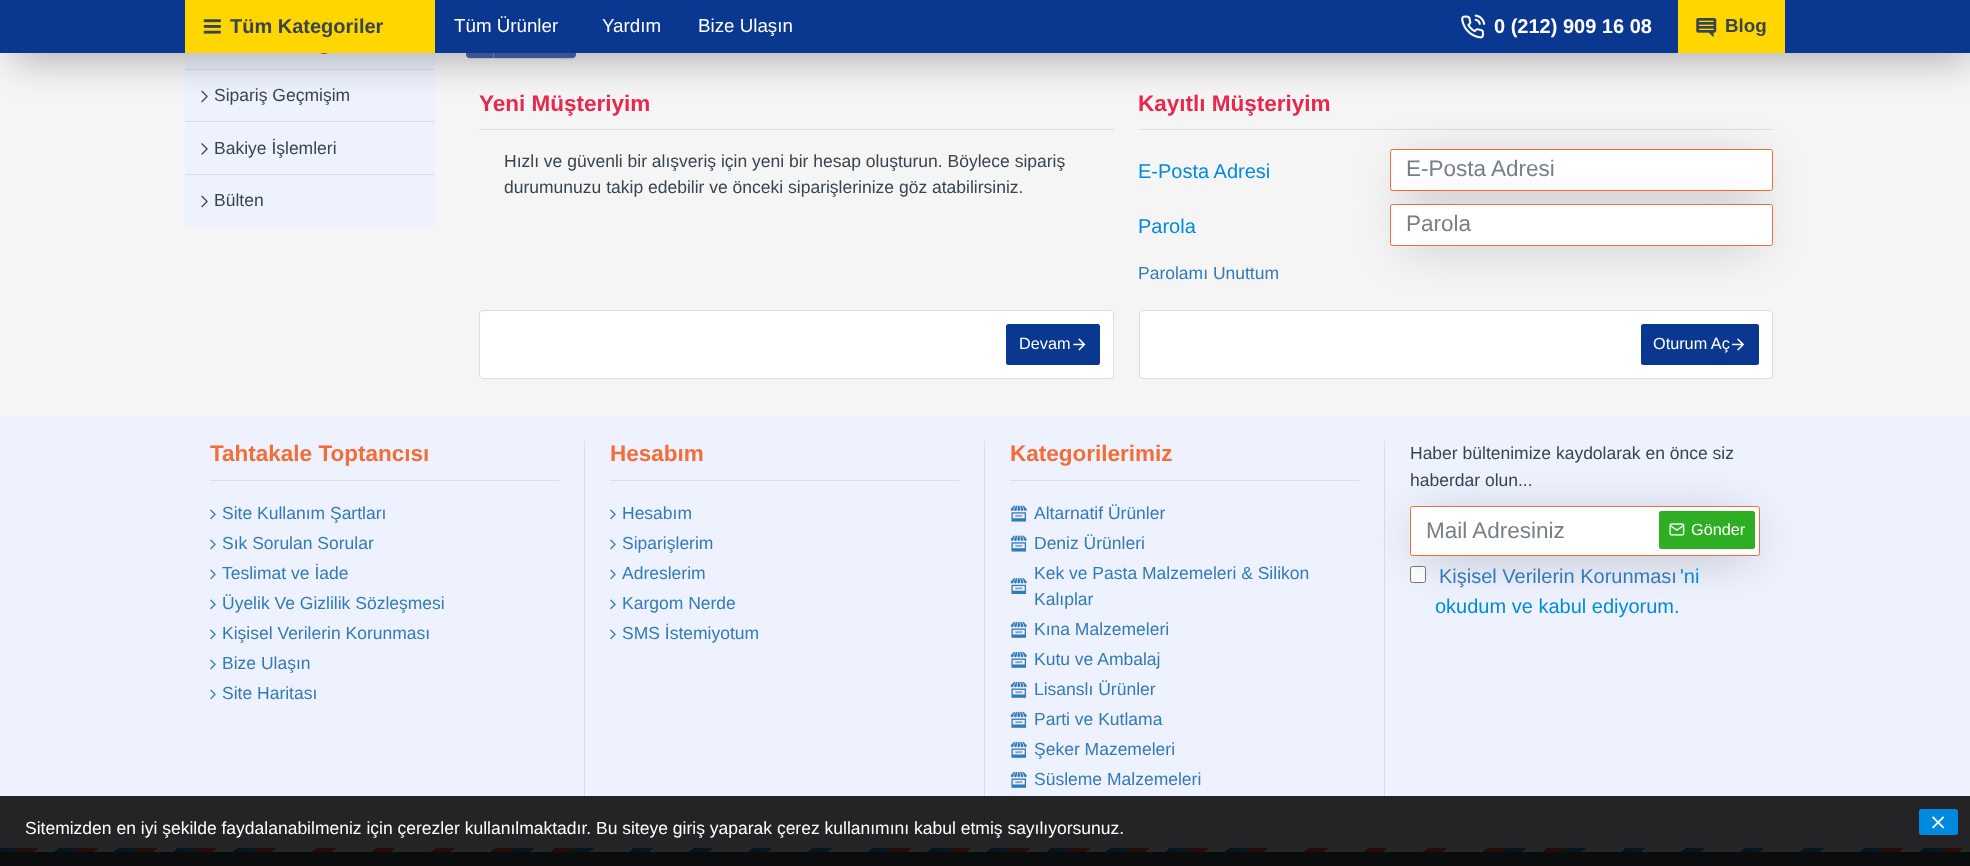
<?xml version="1.0" encoding="UTF-8"?>
<svg xmlns="http://www.w3.org/2000/svg" xmlns:xlink="http://www.w3.org/1999/xlink" width="1970" height="866">
  <defs>
    <linearGradient id="g1" gradientUnits="userSpaceOnUse" x1="577" y1="363" x2="1397" y2="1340"><stop offset="0" stop-color="#031521" /><stop offset="0.01" stop-color="#081721" /><stop offset="0.01" stop-color="#262626" /><stop offset="0.01" stop-color="#262626" /><stop offset="0.01" stop-color="#230c0c" /><stop offset="0.02" stop-color="#260e08" /><stop offset="0.02" stop-color="#262626" /><stop offset="0.03" stop-color="#262626" /><stop offset="0.03" stop-color="#031521" /><stop offset="0.04" stop-color="#081721" /><stop offset="0.04" stop-color="#262626" /><stop offset="0.04" stop-color="#262626" /><stop offset="0.04" stop-color="#230c0c" /><stop offset="0.05" stop-color="#260e08" /><stop offset="0.05" stop-color="#262626" /><stop offset="0.06" stop-color="#262626" /><stop offset="0.06" stop-color="#031521" /><stop offset="0.07" stop-color="#081721" /><stop offset="0.07" stop-color="#262626" /><stop offset="0.07" stop-color="#262626" /><stop offset="0.07" stop-color="#230c0c" /><stop offset="0.08" stop-color="#260e08" /><stop offset="0.08" stop-color="#262626" /><stop offset="0.09" stop-color="#262626" /><stop offset="0.09" stop-color="#031521" /><stop offset="0.1" stop-color="#081721" /><stop offset="0.1" stop-color="#262626" /><stop offset="0.1" stop-color="#262626" /><stop offset="0.1" stop-color="#230c0c" /><stop offset="0.11" stop-color="#260e08" /><stop offset="0.11" stop-color="#262626" /><stop offset="0.12" stop-color="#262626" /><stop offset="0.12" stop-color="#031521" /><stop offset="0.13" stop-color="#081721" /><stop offset="0.13" stop-color="#262626" /><stop offset="0.13" stop-color="#262626" /><stop offset="0.13" stop-color="#230c0c" /><stop offset="0.14" stop-color="#260e08" /><stop offset="0.14" stop-color="#262626" /><stop offset="0.15" stop-color="#262626" /><stop offset="0.15" stop-color="#031521" /><stop offset="0.15" stop-color="#081721" /><stop offset="0.15" stop-color="#262626" /><stop offset="0.16" stop-color="#262626" /><stop offset="0.16" stop-color="#230c0c" /><stop offset="0.17" stop-color="#260e08" /><stop offset="0.17" stop-color="#262626" /><stop offset="0.18" stop-color="#262626" /><stop offset="0.18" stop-color="#031521" /><stop offset="0.18" stop-color="#081721" /><stop offset="0.18" stop-color="#262626" /><stop offset="0.19" stop-color="#262626" /><stop offset="0.19" stop-color="#230c0c" /><stop offset="0.2" stop-color="#260e08" /><stop offset="0.2" stop-color="#262626" /><stop offset="0.21" stop-color="#262626" /><stop offset="0.21" stop-color="#031521" /><stop offset="0.21" stop-color="#081721" /><stop offset="0.21" stop-color="#262626" /><stop offset="0.22" stop-color="#262626" /><stop offset="0.22" stop-color="#230c0c" /><stop offset="0.23" stop-color="#260e08" /><stop offset="0.23" stop-color="#262626" /><stop offset="0.24" stop-color="#262626" /><stop offset="0.24" stop-color="#031521" /><stop offset="0.24" stop-color="#081721" /><stop offset="0.24" stop-color="#262626" /><stop offset="0.25" stop-color="#262626" /><stop offset="0.25" stop-color="#230c0c" /><stop offset="0.26" stop-color="#260e08" /><stop offset="0.26" stop-color="#262626" /><stop offset="0.26" stop-color="#262626" /><stop offset="0.26" stop-color="#031521" /><stop offset="0.27" stop-color="#081721" /><stop offset="0.27" stop-color="#262626" /><stop offset="0.28" stop-color="#262626" /><stop offset="0.28" stop-color="#230c0c" /><stop offset="0.29" stop-color="#260e08" /><stop offset="0.29" stop-color="#262626" /><stop offset="0.29" stop-color="#262626" /><stop offset="0.29" stop-color="#031521" /><stop offset="0.3" stop-color="#081721" /><stop offset="0.3" stop-color="#262626" /><stop offset="0.31" stop-color="#262626" /><stop offset="0.31" stop-color="#230c0c" /><stop offset="0.31" stop-color="#260e08" /><stop offset="0.31" stop-color="#262626" /><stop offset="0.32" stop-color="#262626" /><stop offset="0.32" stop-color="#031521" /><stop offset="0.33" stop-color="#081721" /><stop offset="0.33" stop-color="#262626" /><stop offset="0.34" stop-color="#262626" /><stop offset="0.34" stop-color="#230c0c" /><stop offset="0.34" stop-color="#260e08" /><stop offset="0.34" stop-color="#262626" /><stop offset="0.35" stop-color="#262626" /><stop offset="0.35" stop-color="#031521" /><stop offset="0.36" stop-color="#081721" /><stop offset="0.36" stop-color="#262626" /><stop offset="0.37" stop-color="#262626" /><stop offset="0.37" stop-color="#230c0c" /><stop offset="0.37" stop-color="#260e08" /><stop offset="0.37" stop-color="#262626" /><stop offset="0.38" stop-color="#262626" /><stop offset="0.38" stop-color="#031521" /><stop offset="0.39" stop-color="#081721" /><stop offset="0.39" stop-color="#262626" /><stop offset="0.4" stop-color="#262626" /><stop offset="0.4" stop-color="#230c0c" /><stop offset="0.4" stop-color="#260e08" /><stop offset="0.4" stop-color="#262626" /><stop offset="0.41" stop-color="#262626" /><stop offset="0.41" stop-color="#031521" /><stop offset="0.42" stop-color="#081721" /><stop offset="0.42" stop-color="#262626" /><stop offset="0.43" stop-color="#262626" /><stop offset="0.43" stop-color="#230c0c" /><stop offset="0.43" stop-color="#260e08" /><stop offset="0.43" stop-color="#262626" /><stop offset="0.44" stop-color="#262626" /><stop offset="0.44" stop-color="#031521" /><stop offset="0.45" stop-color="#081721" /><stop offset="0.45" stop-color="#262626" /><stop offset="0.45" stop-color="#262626" /><stop offset="0.45" stop-color="#230c0c" /><stop offset="0.46" stop-color="#260e08" /><stop offset="0.46" stop-color="#262626" /><stop offset="0.47" stop-color="#262626" /><stop offset="0.47" stop-color="#031521" /><stop offset="0.48" stop-color="#081721" /><stop offset="0.48" stop-color="#262626" /><stop offset="0.48" stop-color="#262626" /><stop offset="0.48" stop-color="#230c0c" /><stop offset="0.49" stop-color="#260e08" /><stop offset="0.49" stop-color="#262626" /><stop offset="0.5" stop-color="#262626" /><stop offset="0.5" stop-color="#031521" /><stop offset="0.51" stop-color="#081721" /><stop offset="0.51" stop-color="#262626" /><stop offset="0.51" stop-color="#262626" /><stop offset="0.51" stop-color="#230c0c" /><stop offset="0.52" stop-color="#260e08" /><stop offset="0.52" stop-color="#262626" /><stop offset="0.53" stop-color="#262626" /><stop offset="0.53" stop-color="#031521" /><stop offset="0.54" stop-color="#081721" /><stop offset="0.54" stop-color="#262626" /><stop offset="0.54" stop-color="#262626" /><stop offset="0.54" stop-color="#230c0c" /><stop offset="0.55" stop-color="#260e08" /><stop offset="0.55" stop-color="#262626" /><stop offset="0.56" stop-color="#262626" /><stop offset="0.56" stop-color="#031521" /><stop offset="0.57" stop-color="#081721" /><stop offset="0.57" stop-color="#262626" /><stop offset="0.57" stop-color="#262626" /><stop offset="0.57" stop-color="#230c0c" /><stop offset="0.58" stop-color="#260e08" /><stop offset="0.58" stop-color="#262626" /><stop offset="0.59" stop-color="#262626" /><stop offset="0.59" stop-color="#031521" /><stop offset="0.6" stop-color="#081721" /><stop offset="0.6" stop-color="#262626" /><stop offset="0.6" stop-color="#262626" /><stop offset="0.6" stop-color="#230c0c" /><stop offset="0.61" stop-color="#260e08" /><stop offset="0.61" stop-color="#262626" /><stop offset="0.62" stop-color="#262626" /><stop offset="0.62" stop-color="#031521" /><stop offset="0.63" stop-color="#081721" /><stop offset="0.63" stop-color="#262626" /><stop offset="0.63" stop-color="#262626" /><stop offset="0.63" stop-color="#230c0c" /><stop offset="0.64" stop-color="#260e08" /><stop offset="0.64" stop-color="#262626" /><stop offset="0.65" stop-color="#262626" /><stop offset="0.65" stop-color="#031521" /><stop offset="0.65" stop-color="#081721" /><stop offset="0.65" stop-color="#262626" /><stop offset="0.66" stop-color="#262626" /><stop offset="0.66" stop-color="#230c0c" /><stop offset="0.67" stop-color="#260e08" /><stop offset="0.67" stop-color="#262626" /><stop offset="0.68" stop-color="#262626" /><stop offset="0.68" stop-color="#031521" /><stop offset="0.68" stop-color="#081721" /><stop offset="0.68" stop-color="#262626" /><stop offset="0.69" stop-color="#262626" /><stop offset="0.69" stop-color="#230c0c" /><stop offset="0.7" stop-color="#260e08" /><stop offset="0.7" stop-color="#262626" /><stop offset="0.71" stop-color="#262626" /><stop offset="0.71" stop-color="#031521" /><stop offset="0.71" stop-color="#081721" /><stop offset="0.71" stop-color="#262626" /><stop offset="0.72" stop-color="#262626" /><stop offset="0.72" stop-color="#230c0c" /><stop offset="0.73" stop-color="#260e08" /><stop offset="0.73" stop-color="#262626" /><stop offset="0.74" stop-color="#262626" /><stop offset="0.74" stop-color="#031521" /><stop offset="0.74" stop-color="#081721" /><stop offset="0.74" stop-color="#262626" /><stop offset="0.75" stop-color="#262626" /><stop offset="0.75" stop-color="#230c0c" /><stop offset="0.76" stop-color="#260e08" /><stop offset="0.76" stop-color="#262626" /><stop offset="0.76" stop-color="#262626" /><stop offset="0.76" stop-color="#031521" /><stop offset="0.77" stop-color="#081721" /><stop offset="0.77" stop-color="#262626" /><stop offset="0.78" stop-color="#262626" /><stop offset="0.78" stop-color="#230c0c" /><stop offset="0.79" stop-color="#260e08" /><stop offset="0.79" stop-color="#262626" /><stop offset="0.79" stop-color="#262626" /><stop offset="0.79" stop-color="#031521" /><stop offset="0.8" stop-color="#081721" /><stop offset="0.8" stop-color="#262626" /><stop offset="0.81" stop-color="#262626" /><stop offset="0.81" stop-color="#230c0c" /><stop offset="0.81" stop-color="#260e08" /><stop offset="0.81" stop-color="#262626" /><stop offset="0.82" stop-color="#262626" /><stop offset="0.82" stop-color="#031521" /><stop offset="0.83" stop-color="#081721" /><stop offset="0.83" stop-color="#262626" /><stop offset="0.84" stop-color="#262626" /><stop offset="0.84" stop-color="#230c0c" /><stop offset="0.84" stop-color="#260e08" /><stop offset="0.84" stop-color="#262626" /><stop offset="0.85" stop-color="#262626" /><stop offset="0.85" stop-color="#031521" /><stop offset="0.86" stop-color="#081721" /><stop offset="0.86" stop-color="#262626" /><stop offset="0.87" stop-color="#262626" /><stop offset="0.87" stop-color="#230c0c" /><stop offset="0.87" stop-color="#260e08" /><stop offset="0.87" stop-color="#262626" /><stop offset="0.88" stop-color="#262626" /><stop offset="0.88" stop-color="#031521" /><stop offset="0.89" stop-color="#081721" /><stop offset="0.89" stop-color="#262626" /><stop offset="0.9" stop-color="#262626" /><stop offset="0.9" stop-color="#230c0c" /><stop offset="0.9" stop-color="#260e08" /><stop offset="0.9" stop-color="#262626" /><stop offset="0.91" stop-color="#262626" /><stop offset="0.91" stop-color="#031521" /><stop offset="0.92" stop-color="#081721" /><stop offset="0.92" stop-color="#262626" /><stop offset="0.93" stop-color="#262626" /><stop offset="0.93" stop-color="#230c0c" /><stop offset="0.93" stop-color="#260e08" /><stop offset="0.93" stop-color="#262626" /><stop offset="0.94" stop-color="#262626" /><stop offset="0.94" stop-color="#031521" /><stop offset="0.95" stop-color="#081721" /><stop offset="0.95" stop-color="#262626" /><stop offset="0.95" stop-color="#262626" /><stop offset="0.95" stop-color="#230c0c" /><stop offset="0.96" stop-color="#260e08" /><stop offset="0.96" stop-color="#262626" /><stop offset="0.97" stop-color="#262626" /><stop offset="0.97" stop-color="#031521" /><stop offset="0.98" stop-color="#081721" /><stop offset="0.98" stop-color="#262626" /><stop offset="0.98" stop-color="#262626" /><stop offset="0.98" stop-color="#230c0c" /><stop offset="0.99" stop-color="#260e08" /><stop offset="0.99" stop-color="#262626" /><stop offset="1" stop-color="#262626" /></linearGradient>
  </defs>
  <rect width="100%" height="100%" fill="#f5f5f5" />
  <rect x="185" y="53" width="250" height="16" fill="#edf2fe" />
  <rect x="314" y="33" width="20" height="21" rx="10" fill="#e8284d" />
  <rect x="185" y="70" width="250" height="51" fill="#edf2fe" />
  <rect x="185" y="69" width="250" height="1" fill="#dddddd" />
  <image x="201" y="90" width="7" height="13" xlink:href="image4.png" />
  <path d="M 466 22 v 22 c 0 19 -1 15 21 15 h 68 c 8 0 21 3 21 -4 c -1 2 -2 3 -4 3 h -102 c -2 0 -4 -2 -4 -4 z" fill="#dddddd" />
  <rect x="466" y="18" width="110" height="40" rx="4" fill="#4864b4" />
  <rect x="493" y="53" width="1" height="5" fill="#7f93cb" />
  <rect x="13" y="19" width="1957" height="40" fill="#000000" fill-opacity="0.3" filter="blur(19px)" />
  <rect width="1970" height="53" fill="#0a378f" />
  <rect x="185" width="250" height="53" fill="#ffd600" />
  <image x="203" y="19" width="18" height="15" xlink:href="image1.png" />
  <image x="1461" y="14" width="25" height="25" xlink:href="image2.png" />
  <rect x="1678" width="107" height="53" fill="#ffd600" />
  <image x="1696" y="18" width="21" height="20" xlink:href="image3.png" />
  <rect x="185" y="123" width="250" height="51" fill="#edf2fe" />
  <rect x="185" y="121" width="250" height="1" fill="#dddddd" />
  <image x="201" y="143" width="7" height="12" xlink:href="image5.png" />
  <rect x="185" y="175" width="250" height="51" fill="#edf2fe" />
  <rect x="185" y="174" width="250" height="1" fill="#dddddd" />
  <image x="201" y="195" width="7" height="13" xlink:href="image4.png" />
  <rect x="479" y="129" width="635" height="1" fill="#dddddd" />
  <rect x="479.5" y="310.5" width="634" height="68" rx="3.5" fill="#ffffff" stroke="#dddddd" />
  <rect x="1006" y="324" width="94" height="41" rx="2.5" fill="#0a378f" />
  <image x="1073" y="338" width="13" height="13" xlink:href="image6.png" />
  <rect x="1139" y="129" width="634" height="1" fill="#dddddd" />
  <rect x="1403" y="168" width="357" height="17" fill="#000000" fill-opacity="0.35" filter="blur(25px)" />
  <rect x="1390.5" y="149.5" width="382" height="41" rx="2" fill="#ffffff" stroke="#f36d37" />
  <rect x="1139.5" y="310.5" width="633" height="68" rx="3.5" fill="#ffffff" stroke="#dddddd" />
  <rect x="1403" y="223" width="357" height="17" fill="#000000" fill-opacity="0.35" filter="blur(25px)" />
  <rect x="1390.5" y="204.5" width="382" height="41" rx="2" fill="#ffffff" stroke="#f36d37" />
  <rect x="1641" y="324" width="118" height="41" rx="2.5" fill="#0a378f" />
  <image x="1732" y="338" width="13" height="13" xlink:href="image7.png" />
  <rect y="416" width="1970" height="380" fill="#edf2fe" />
  <rect y="796" width="1970" height="52" fill="#242426" />
  <rect x="584" y="441" width="1" height="355" fill="#dddddd" />
  <rect x="584" y="796" width="1" height="25" fill="#212121" />
  <rect x="210" y="480" width="349" height="1" fill="#dddddd" />
  <image x="210" y="509" width="6" height="11" xlink:href="image8.png" />
  <image x="210" y="539" width="6" height="11" xlink:href="image8.png" />
  <image x="210" y="569" width="6" height="11" xlink:href="image8.png" />
  <image x="210" y="599" width="6" height="11" xlink:href="image8.png" />
  <image x="210" y="629" width="6" height="11" xlink:href="image8.png" />
  <image x="210" y="659" width="6" height="11" xlink:href="image8.png" />
  <image x="210" y="689" width="6" height="11" xlink:href="image8.png" />
  <rect x="984" y="441" width="1" height="355" fill="#dddddd" />
  <rect x="984" y="796" width="1" height="25" fill="#212121" />
  <rect x="610" y="480" width="349" height="1" fill="#dddddd" />
  <image x="610" y="509" width="6" height="11" xlink:href="image8.png" />
  <image x="610" y="539" width="6" height="11" xlink:href="image8.png" />
  <image x="610" y="569" width="6" height="11" xlink:href="image8.png" />
  <image x="610" y="599" width="6" height="11" xlink:href="image8.png" />
  <image x="610" y="629" width="6" height="11" xlink:href="image8.png" />
  <rect x="1384" y="441" width="1" height="355" fill="#dddddd" />
  <rect x="1384" y="796" width="1" height="25" fill="#212121" />
  <rect x="1010" y="480" width="349" height="1" fill="#dddddd" />
  <image x="1010" y="505" width="17" height="17" xlink:href="image9.png" />
  <image x="1010" y="535" width="17" height="17" xlink:href="image9.png" />
  <image x="1010" y="578" width="17" height="16" xlink:href="image10.png" />
  <image x="1010" y="621" width="17" height="17" xlink:href="image11.png" />
  <image x="1010" y="651" width="17" height="17" xlink:href="image11.png" />
  <image x="1010" y="681" width="17" height="17" xlink:href="image11.png" />
  <image x="1010" y="711" width="17" height="17" xlink:href="image11.png" />
  <image x="1010" y="741" width="17" height="17" xlink:href="image11.png" />
  <image x="1010" y="771" width="17" height="17" xlink:href="image11.png" />
  <rect x="1410.5" y="566.5" width="15" height="16" rx="2" fill="#ffffff" stroke="#767676" />
  <rect x="1423" y="525" width="325" height="25" fill="#000000" fill-opacity="0.35" filter="blur(25px)" />
  <rect x="1410.5" y="506.5" width="349" height="49" rx="2" fill="#ffffff" stroke="#f36d37" />
  <rect x="1659" y="511" width="96" height="38" rx="2.5" fill="#2eaf23" />
  <image x="1669" y="523" width="16" height="13" xlink:href="image12.png" />
  <rect y="852" width="1970" height="14" fill="#0a0c0e" />
  <rect y="848" width="1970" height="4" fill="url(#g1)" />
  <rect y="846" width="1970" height="1" fill="#212121" />
  <rect x="1919" y="809" width="39" height="26" rx="2.5" fill="#008add" />
  <image x="1932" y="816" width="13" height="13" xlink:href="image13.png" />
  <text x="230" y="33" style="font-family: Liberation Sans; font-size: 20px; font-weight: bold; fill: #38444f">Tüm Kategoriler</text>
  <text x="454" y="32" style="font-family: Liberation Sans; font-size: 18.75px; fill: #ffffff">Tüm Ürünler</text>
  <text x="602" y="32" style="font-family: Liberation Sans; font-size: 18.75px; fill: #ffffff">Yardım</text>
  <text x="698" y="32" style="font-family: Liberation Sans; font-size: 18.75px; fill: #ffffff">Bize Ulaşın</text>
  <text x="1494" y="33" style="font-family: Liberation Sans; font-size: 20px; font-weight: bold; fill: #ffffff">0 (212) 909 16 08</text>
  <text x="1725" y="32" style="font-family: Liberation Sans; font-size: 18.75px; font-weight: bold; fill: #38444f">Blog</text>
  <text x="214" y="101" style="font-family: Liberation Sans; font-size: 17.5px; fill: #38444f">Sipariş Geçmişim</text>
  <text x="214" y="154" style="font-family: Liberation Sans; font-size: 17.5px; fill: #38444f">Bakiye İşlemleri</text>
  <text x="214" y="206" style="font-family: Liberation Sans; font-size: 17.5px; fill: #38444f">Bülten</text>
  <text x="479" y="111" style="font-family: Liberation Sans; font-size: 22.5px; font-weight: bold; fill: #e8284d">Yeni Müşteriyim</text>
  <text x="504" y="167" style="font-family: Liberation Sans; font-size: 17.5px; fill: #38444f">Hızlı ve güvenli bir alışveriş için yeni bir hesap oluşturun. Böylece sipariş</text>
  <text x="504" y="193" style="font-family: Liberation Sans; font-size: 17.5px; fill: #38444f">durumunuzu takip edebilir ve önceki siparişlerinize göz atabilirsiniz.</text>
  <text x="1019" y="349" style="font-family: Liberation Sans; font-size: 16.25px; fill: #ffffff">Devam</text>
  <text x="1138" y="111" style="font-family: Liberation Sans; font-size: 22.5px; font-weight: bold; fill: #e8284d">Kayıtlı Müşteriyim</text>
  <text x="1138" y="178" style="font-family: Liberation Sans; font-size: 20px; fill: #008add">E-Posta Adresi</text>
  <text x="1406" y="176" style="font-family: Liberation Sans; font-size: 22.5px; fill: #788087">E-Posta Adresi</text>
  <text x="1138" y="233" style="font-family: Liberation Sans; font-size: 20px; fill: #008add">Parola</text>
  <text x="1406" y="231" style="font-family: Liberation Sans; font-size: 22.5px; fill: #788087">Parola</text>
  <text x="1138" y="279" style="font-family: Liberation Sans; font-size: 17.5px; fill: #337ab7">Parolamı Unuttum</text>
  <text x="1653" y="349" style="font-family: Liberation Sans; font-size: 16.25px; fill: #ffffff">Oturum Aç</text>
  <text x="210" y="461" style="font-family: Liberation Sans; font-size: 22.5px; font-weight: bold; fill: #f36d37">Tahtakale Toptancısı</text>
  <text x="222" y="519" style="font-family: Liberation Sans; font-size: 17.5px; fill: #337ab7">Site Kullanım Şartları</text>
  <text x="222" y="549" style="font-family: Liberation Sans; font-size: 17.5px; fill: #337ab7">Sık Sorulan Sorular</text>
  <text x="222" y="579" style="font-family: Liberation Sans; font-size: 17.5px; fill: #337ab7">Teslimat ve İade</text>
  <text x="222" y="609" style="font-family: Liberation Sans; font-size: 17.5px; fill: #337ab7">Üyelik Ve Gizlilik Sözleşmesi</text>
  <text x="222" y="639" style="font-family: Liberation Sans; font-size: 17.5px; fill: #337ab7">Kişisel Verilerin Korunması</text>
  <text x="222" y="669" style="font-family: Liberation Sans; font-size: 17.5px; fill: #337ab7">Bize Ulaşın</text>
  <text x="222" y="699" style="font-family: Liberation Sans; font-size: 17.5px; fill: #337ab7">Site Haritası</text>
  <text x="610" y="461" style="font-family: Liberation Sans; font-size: 22.5px; font-weight: bold; fill: #f36d37">Hesabım</text>
  <text x="622" y="519" style="font-family: Liberation Sans; font-size: 17.5px; fill: #337ab7">Hesabım</text>
  <text x="622" y="549" style="font-family: Liberation Sans; font-size: 17.5px; fill: #337ab7">Siparişlerim</text>
  <text x="622" y="579" style="font-family: Liberation Sans; font-size: 17.5px; fill: #337ab7">Adreslerim</text>
  <text x="622" y="609" style="font-family: Liberation Sans; font-size: 17.5px; fill: #337ab7">Kargom Nerde</text>
  <text x="622" y="639" style="font-family: Liberation Sans; font-size: 17.5px; fill: #337ab7">SMS İstemiyotum</text>
  <text x="1010" y="461" style="font-family: Liberation Sans; font-size: 22.5px; font-weight: bold; fill: #f36d37">Kategorilerimiz</text>
  <text x="1034" y="519" style="font-family: Liberation Sans; font-size: 17.5px; fill: #337ab7">Altarnatif Ürünler</text>
  <text x="1034" y="549" style="font-family: Liberation Sans; font-size: 17.5px; fill: #337ab7">Deniz Ürünleri</text>
  <text x="1034" y="579" style="font-family: Liberation Sans; font-size: 17.5px; fill: #337ab7">Kek ve Pasta Malzemeleri &amp; Silikon</text>
  <text x="1034" y="605" style="font-family: Liberation Sans; font-size: 17.5px; fill: #337ab7">Kalıplar</text>
  <text x="1034" y="635" style="font-family: Liberation Sans; font-size: 17.5px; fill: #337ab7">Kına Malzemeleri</text>
  <text x="1034" y="665" style="font-family: Liberation Sans; font-size: 17.5px; fill: #337ab7">Kutu ve Ambalaj</text>
  <text x="1034" y="695" style="font-family: Liberation Sans; font-size: 17.5px; fill: #337ab7">Lisanslı Ürünler</text>
  <text x="1034" y="725" style="font-family: Liberation Sans; font-size: 17.5px; fill: #337ab7">Parti ve Kutlama</text>
  <text x="1034" y="755" style="font-family: Liberation Sans; font-size: 17.5px; fill: #337ab7">Şeker Mazemeleri</text>
  <text x="1034" y="785" style="font-family: Liberation Sans; font-size: 17.5px; fill: #337ab7">Süsleme Malzemeleri</text>
  <text x="1410" y="459" style="font-family: Liberation Sans; font-size: 17.5px; fill: #38444f">Haber bültenimize kaydolarak en önce siz</text>
  <text x="1410" y="486" style="font-family: Liberation Sans; font-size: 17.5px; fill: #38444f">haberdar olun...</text>
  <text x="1426" y="538" style="font-family: Liberation Sans; font-size: 22.5px; fill: #788087">Mail Adresiniz</text>
  <text x="1691" y="535" style="font-family: Liberation Sans; font-size: 16.25px; fill: #ffffff">Gönder</text>
  <text x="1439" y="583" style="font-family: Liberation Sans; font-size: 20px; fill: #337ab7">Kişisel Verilerin Korunması</text>
  <text x="1680" y="583" style="font-family: Liberation Sans; font-size: 20px; fill: #008add">'ni</text>
  <text x="1435" y="613" style="font-family: Liberation Sans; font-size: 20px; fill: #008add">okudum ve kabul ediyorum.</text>
  <text x="25" y="834" style="font-family: Liberation Sans; font-size: 17.5px; fill: #ffffff">Sitemizden en iyi şekilde faydalanabilmeniz için çerezler kullanılmaktadır. Bu siteye giriş yaparak çerez kullanımını kabul etmiş sayılıyorsunuz.</text>
</svg>
